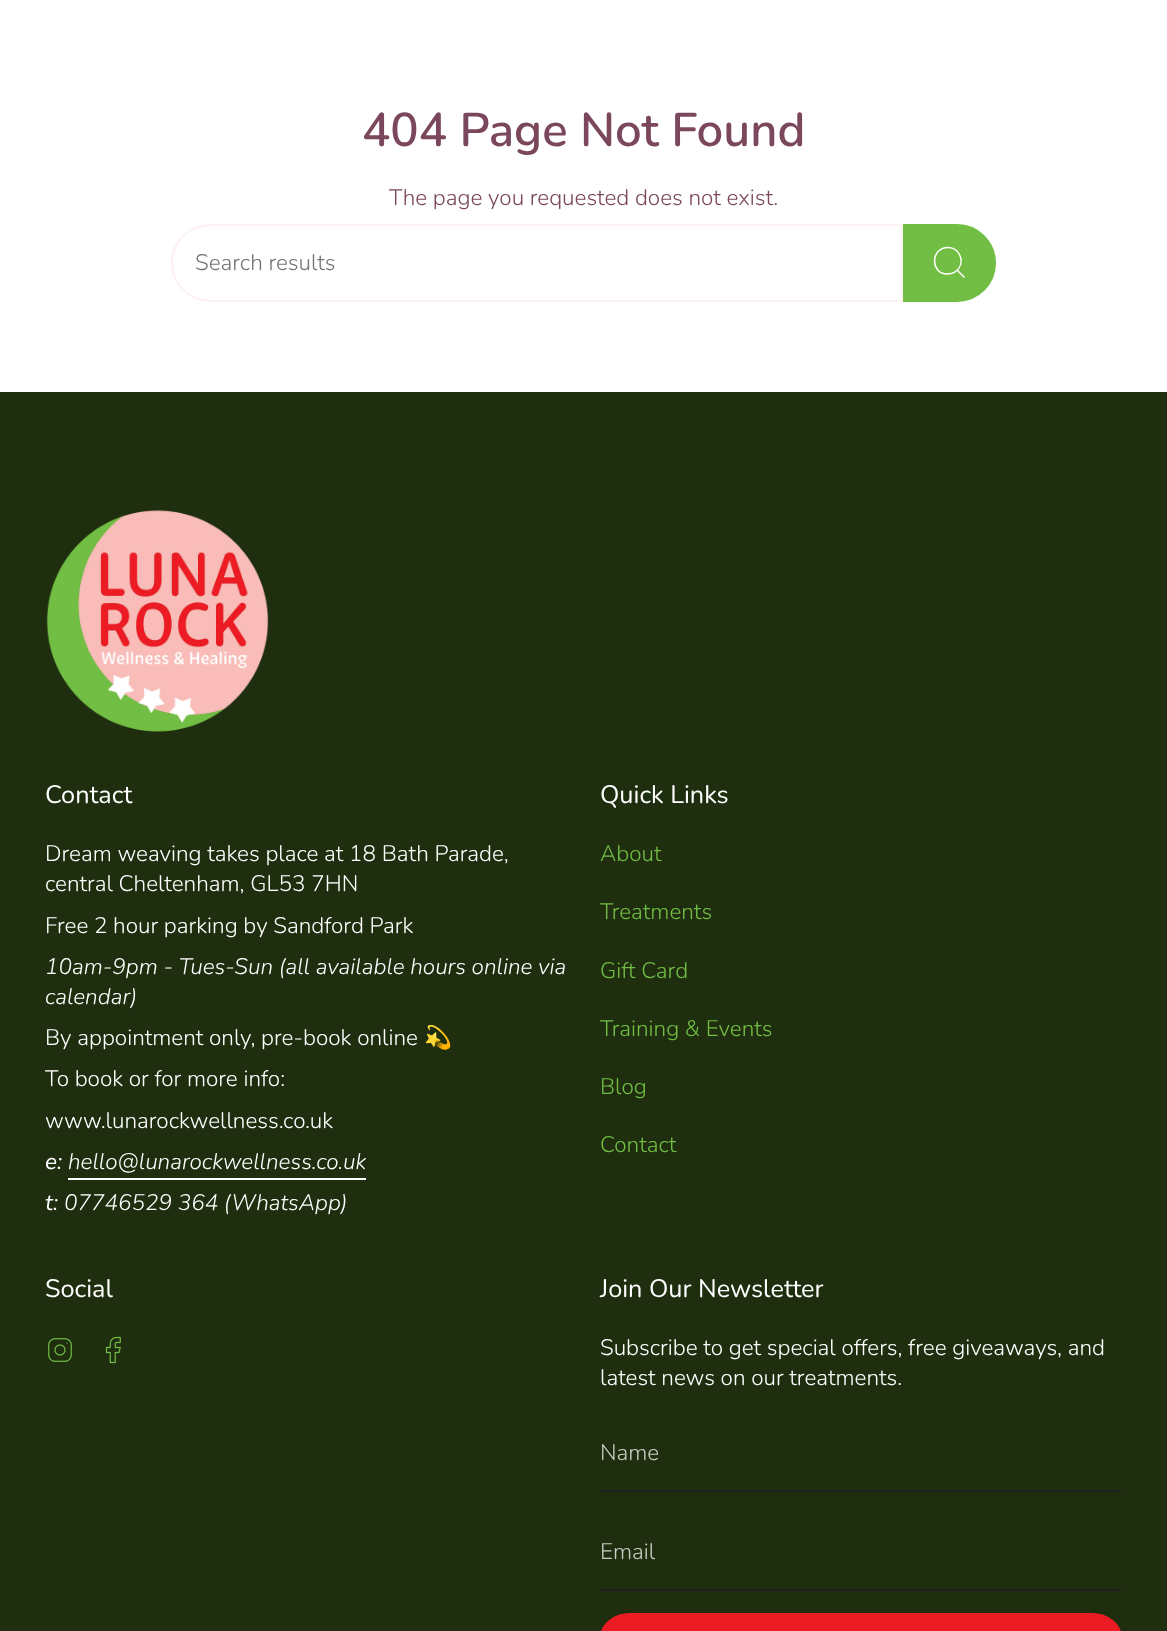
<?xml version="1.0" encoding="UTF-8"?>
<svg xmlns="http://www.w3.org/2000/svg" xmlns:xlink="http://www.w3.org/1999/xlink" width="1167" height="1631">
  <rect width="100%" height="100%" fill="#ffffff" />
  <path d="M 210 225 h 692 v 76 h -692 c -21 0 -38 -17 -38 -38 c 0 -21 17 -38 38 -38 z" fill="none" stroke="#fef2f1" stroke-width="2" />
  <path d="M 904 225 h 53 c 21 0 38 17 38 38 c 0 21 -17 38 -38 38 h -53 z" fill="#72be44" stroke="#72be44" stroke-width="2" />
  <path d="M 948 247.5 c 12.5 0 18 16.5 7.5 24 c -2.5 2 -5.5 2.5 -8.5 2.5 c -17 -0.5 -16.5 -26.5 1 -26.5 z m 9 22.5 l 7.5 7.5" fill="none" stroke="#ffffff" stroke-width="1.5" />
  <rect y="392" width="1167" height="1239" fill="#1e2e0e" />
  <image x="46" y="510" width="223" height="222" xlink:href="image1.png" />
  <rect x="68" y="1178" width="298" height="2" fill="#ffffff" />
  <image x="48" y="1338" width="24" height="24" xlink:href="image2.png" />
  <image x="105" y="1336" width="16" height="28" xlink:href="image3.png" />
  <rect x="600" y="1490" width="522" height="2" fill="#212121" />
  <rect x="600" y="1589" width="522" height="2" fill="#212121" />
  <rect x="601" y="1614" width="520" height="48" rx="29" fill="#ec1c24" stroke="#ec1c24" stroke-width="2" />
  <text x="362" y="146" style="font-family: Nunito; font-size: 47.25px; font-weight: 600; fill: #7b475c">404 Page Not Found</text>
  <text x="389" y="205" style="font-family: Nunito; font-size: 22.5px; font-weight: 300; fill: #7b475c">The page you requested does not exist.</text>
  <text x="195" y="270" style="font-family: Nunito; font-size: 22.5px; font-weight: 300; fill: #757575">Search results</text>
  <text x="45" y="803" style="font-family: Nunito; font-size: 25.25px; fill: #ffffff">Contact</text>
  <text x="45" y="861" style="font-family: Nunito; font-size: 22.5px; font-weight: 300; fill: #ffffff">Dream weaving takes place at 18 Bath Parade,</text>
  <text x="45" y="891" style="font-family: Nunito; font-size: 22.5px; font-weight: 300; fill: #ffffff">central Cheltenham, GL53 7HN</text>
  <text x="45" y="933" style="font-family: Nunito; font-size: 22.5px; font-weight: 300; fill: #ffffff">Free 2 hour parking by Sandford Park</text>
  <text x="45" y="974" style="font-family: Nunito; font-size: 22.5px; font-weight: 300; font-style: italic; fill: #ffffff">10am-9pm - Tues-Sun (all available hours online via</text>
  <text x="45" y="1004" style="font-family: Nunito; font-size: 22.5px; font-weight: 300; font-style: italic; fill: #ffffff">calendar)</text>
  <text x="45" y="1045" style="font-family: Nunito; font-size: 22.5px; font-weight: 300; fill: #ffffff">By appointment only, pre-book online</text>
  <text x="424" y="1045" style="font-family: Noto Color Emoji; font-size: 22.5px; fill: #ffffff">💫</text>
  <text x="45" y="1086" style="font-family: Nunito; font-size: 22.5px; font-weight: 300; fill: #ffffff">To book or for more info:</text>
  <text x="45" y="1128" style="font-family: Nunito; font-size: 22.5px; font-weight: 300; fill: #ffffff">www.lunarockwellness.co.uk</text>
  <text x="45" y="1169" style="font-family: Nunito; font-size: 22.5px; font-style: italic; fill: #ffffff">e:</text>
  <text x="68" y="1169" style="font-family: Nunito; font-size: 22.5px; font-weight: 300; font-style: italic; fill: #ffffff">hello@lunarockwellness.co.uk</text>
  <text x="45" y="1210" style="font-family: Nunito; font-size: 22.5px; font-style: italic; fill: #ffffff">t:</text>
  <text x="64" y="1210" style="font-family: Nunito; font-size: 22.5px; font-weight: 300; font-style: italic; fill: #ffffff">07746529 364 (WhatsApp)</text>
  <text x="600" y="803" style="font-family: Nunito; font-size: 25.25px; fill: #ffffff">Quick Links</text>
  <text x="600" y="861" style="font-family: Nunito; font-size: 22.5px; font-weight: 300; fill: #72be44">About</text>
  <text x="600" y="919" style="font-family: Nunito; font-size: 22.5px; font-weight: 300; fill: #72be44">Treatments</text>
  <text x="600" y="978" style="font-family: Nunito; font-size: 22.5px; font-weight: 300; fill: #72be44">Gift Card</text>
  <text x="600" y="1036" style="font-family: Nunito; font-size: 22.5px; font-weight: 300; fill: #72be44">Training &amp; Events</text>
  <text x="600" y="1094" style="font-family: Nunito; font-size: 22.5px; font-weight: 300; fill: #72be44">Blog</text>
  <text x="600" y="1152" style="font-family: Nunito; font-size: 22.5px; font-weight: 300; fill: #72be44">Contact</text>
  <text x="45" y="1297" style="font-family: Nunito; font-size: 25.25px; fill: #ffffff">Social</text>
  <text x="600" y="1297" style="font-family: Nunito; font-size: 25.25px; fill: #ffffff">Join Our Newsletter</text>
  <text x="600" y="1355" style="font-family: Nunito; font-size: 22.5px; font-weight: 300; fill: #ffffff">Subscribe to get special offers, free giveaways, and</text>
  <text x="600" y="1385" style="font-family: Nunito; font-size: 22.5px; font-weight: 300; fill: #ffffff">latest news on our treatments.</text>
  <text x="600" y="1460" style="font-family: Nunito; font-size: 22.5px; font-weight: 300; fill: #c7cbc3">Name</text>
  <text x="600" y="1559" style="font-family: Nunito; font-size: 22.5px; font-weight: 300; fill: #c7cbc3">Email</text>
</svg>
